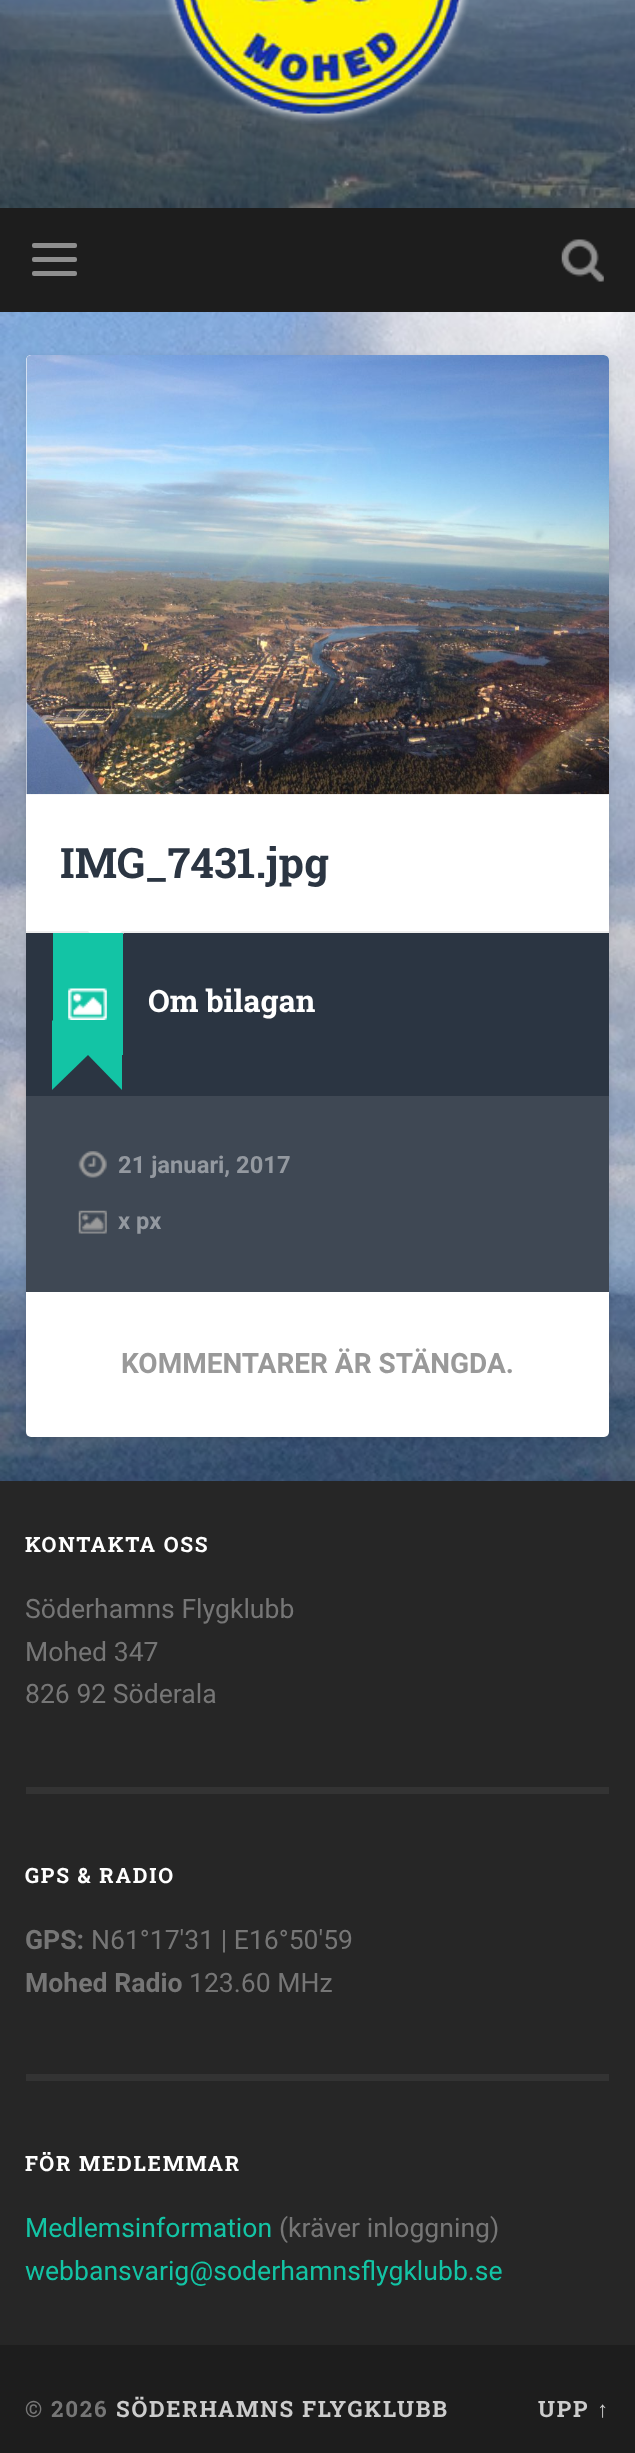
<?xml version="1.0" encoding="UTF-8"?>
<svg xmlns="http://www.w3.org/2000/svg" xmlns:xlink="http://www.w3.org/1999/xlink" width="635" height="2453">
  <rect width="100%" height="100%" fill="#ffffff" />
  <image x="0" y="312" width="635" height="1169" xlink:href="image1.png" />
  <image x="0" y="0" width="635" height="208" xlink:href="image2.png" />
  <image x="165" y="0" width="304" height="124" xlink:href="image3.png" />
  <rect y="208" width="635" height="104" fill="#1d1d1d" />
  <rect x="32" y="243" width="45" height="5" rx="2" fill="#8e8e8e" />
  <rect x="32" y="257" width="45" height="5" rx="2" fill="#8e8e8e" />
  <rect x="32" y="271" width="45" height="5" rx="2" fill="#8e8e8e" />
  <image x="561" y="239" width="43" height="43" xlink:href="image4.png" />
  <rect x="26" y="357" width="583" height="1082" rx="5" fill="#000000" fill-opacity="0.1" filter="blur(3.5px)" />
  <rect x="26" y="355" width="583" height="1082" rx="5" fill="#ffffff" />
  <image x="26" y="355" width="583" height="440" xlink:href="image5.png" />
  <rect x="26" y="931" width="583" height="2" fill="#eeeeee" />
  <rect x="26" y="933" width="583" height="163" fill="#2b3542" />
  <path d="M 84 931 h 42 l -21 21 z" fill="#eeeeee" />
  <path d="M 86 929 h 38 l -19 19.5 z" fill="#ffffff" />
  <path d="M 122 1020 v 70 l -34 -35 z" fill="#13c4a5" />
  <path d="M 52 1090 v -70 l 36 35 z" fill="#13c4a5" />
  <rect x="53" y="933" width="70" height="122" fill="#13c4a5" />
  <image x="68" y="988" width="39" height="32" xlink:href="image6.png" />
  <rect x="26" y="1096" width="583" height="196" fill="#3f4854" />
  <image x="78" y="1151" width="29" height="27" xlink:href="image7.png" />
  <image x="78" y="1210" width="29" height="24" xlink:href="image8.png" />
  <rect y="1481" width="635" height="864" fill="#262626" />
  <rect x="26" y="1787" width="583" height="7" fill="#333333" />
  <rect x="26" y="2074" width="583" height="7" fill="#333333" />
  <rect y="2345" width="635" height="108" fill="#1d1d1d" />
  <text x="60" y="878" style="font-family: Roboto Slab; font-size: 42px; font-weight: bold; fill: #2b3542">IMG_7431.jpg</text>
  <text x="148" y="1012" style="font-family: Roboto Slab; font-size: 30.75px; font-weight: bold; fill: #ffffff">Om bilagan</text>
  <text x="118" y="1173" style="font-family: Roboto; font-size: 23.75px; font-weight: bold; fill: #9499a0">21 januari, 2017</text>
  <text x="118" y="1229" style="font-family: Roboto; font-size: 23.75px; font-weight: bold; fill: #9499a0">x px</text>
  <text x="121" y="1373" style="font-family: Roboto; font-size: 28px; font-weight: bold; fill: #999999">KOMMENTARER ÄR STÄNGDA.</text>
  <text x="25" y="1552" style="font-family: Roboto Slab; font-size: 21px; font-weight: bold; letter-spacing: 1.75px; fill: #ffffff">KONTAKTA OSS</text>
  <text x="25" y="1618" style="font-family: Roboto; font-size: 26.6px; fill: #767676">Söderhamns Flygklubb</text>
  <text x="25" y="1661" style="font-family: Roboto; font-size: 26.6px; fill: #767676">Mohed 347</text>
  <text x="25" y="1703" style="font-family: Roboto; font-size: 26.6px; fill: #767676">826 92 Söderala</text>
  <text x="25" y="1883" style="font-family: Roboto Slab; font-size: 21px; font-weight: bold; letter-spacing: 1.75px; fill: #ffffff">GPS &amp; RADIO</text>
  <text x="25" y="1949" style="font-family: Roboto; font-size: 26.6px; font-weight: bold; fill: #767676">GPS:</text>
  <text x="91" y="1949" style="font-family: Roboto; font-size: 26.6px; fill: #767676">N61°17'31 | E16°50'59</text>
  <text x="25" y="1992" style="font-family: Roboto; font-size: 26.6px; font-weight: bold; fill: #767676">Mohed Radio</text>
  <text x="189" y="1992" style="font-family: Roboto; font-size: 26.6px; fill: #767676">123.60 MHz</text>
  <text x="25" y="2171" style="font-family: Roboto Slab; font-size: 21px; font-weight: bold; letter-spacing: 1.75px; fill: #ffffff">FÖR MEDLEMMAR</text>
  <text x="25" y="2237" style="font-family: Roboto; font-size: 26.6px; fill: #13c4a5">Medlemsinformation</text>
  <text x="279" y="2237" style="font-family: Roboto; font-size: 26.6px; fill: #767676">(kräver inloggning)</text>
  <text x="25" y="2280" style="font-family: Roboto; font-size: 26.6px; fill: #13c4a5">webbansvarig@soderhamnsflygklubb.se</text>
  <text x="25" y="2417" style="font-family: Roboto Slab; font-size: 22.4px; font-weight: bold; letter-spacing: 1.75px; fill: #767676">© 2026</text>
  <text x="116" y="2417" style="font-family: Roboto Slab; font-size: 22.4px; font-weight: bold; letter-spacing: 1.75px; fill: #cccccc">SÖDERHAMNS FLYGKLUBB</text>
  <text x="538" y="2417" style="font-family: Roboto Slab; font-size: 22.4px; font-weight: bold; letter-spacing: 1.75px; fill: #cccccc">UPP</text>
  <text x="597" y="2417" style="font-family: Liberation Sans; font-size: 22.4px; font-weight: bold; letter-spacing: 1.75px; fill: #cccccc">↑</text>
</svg>
